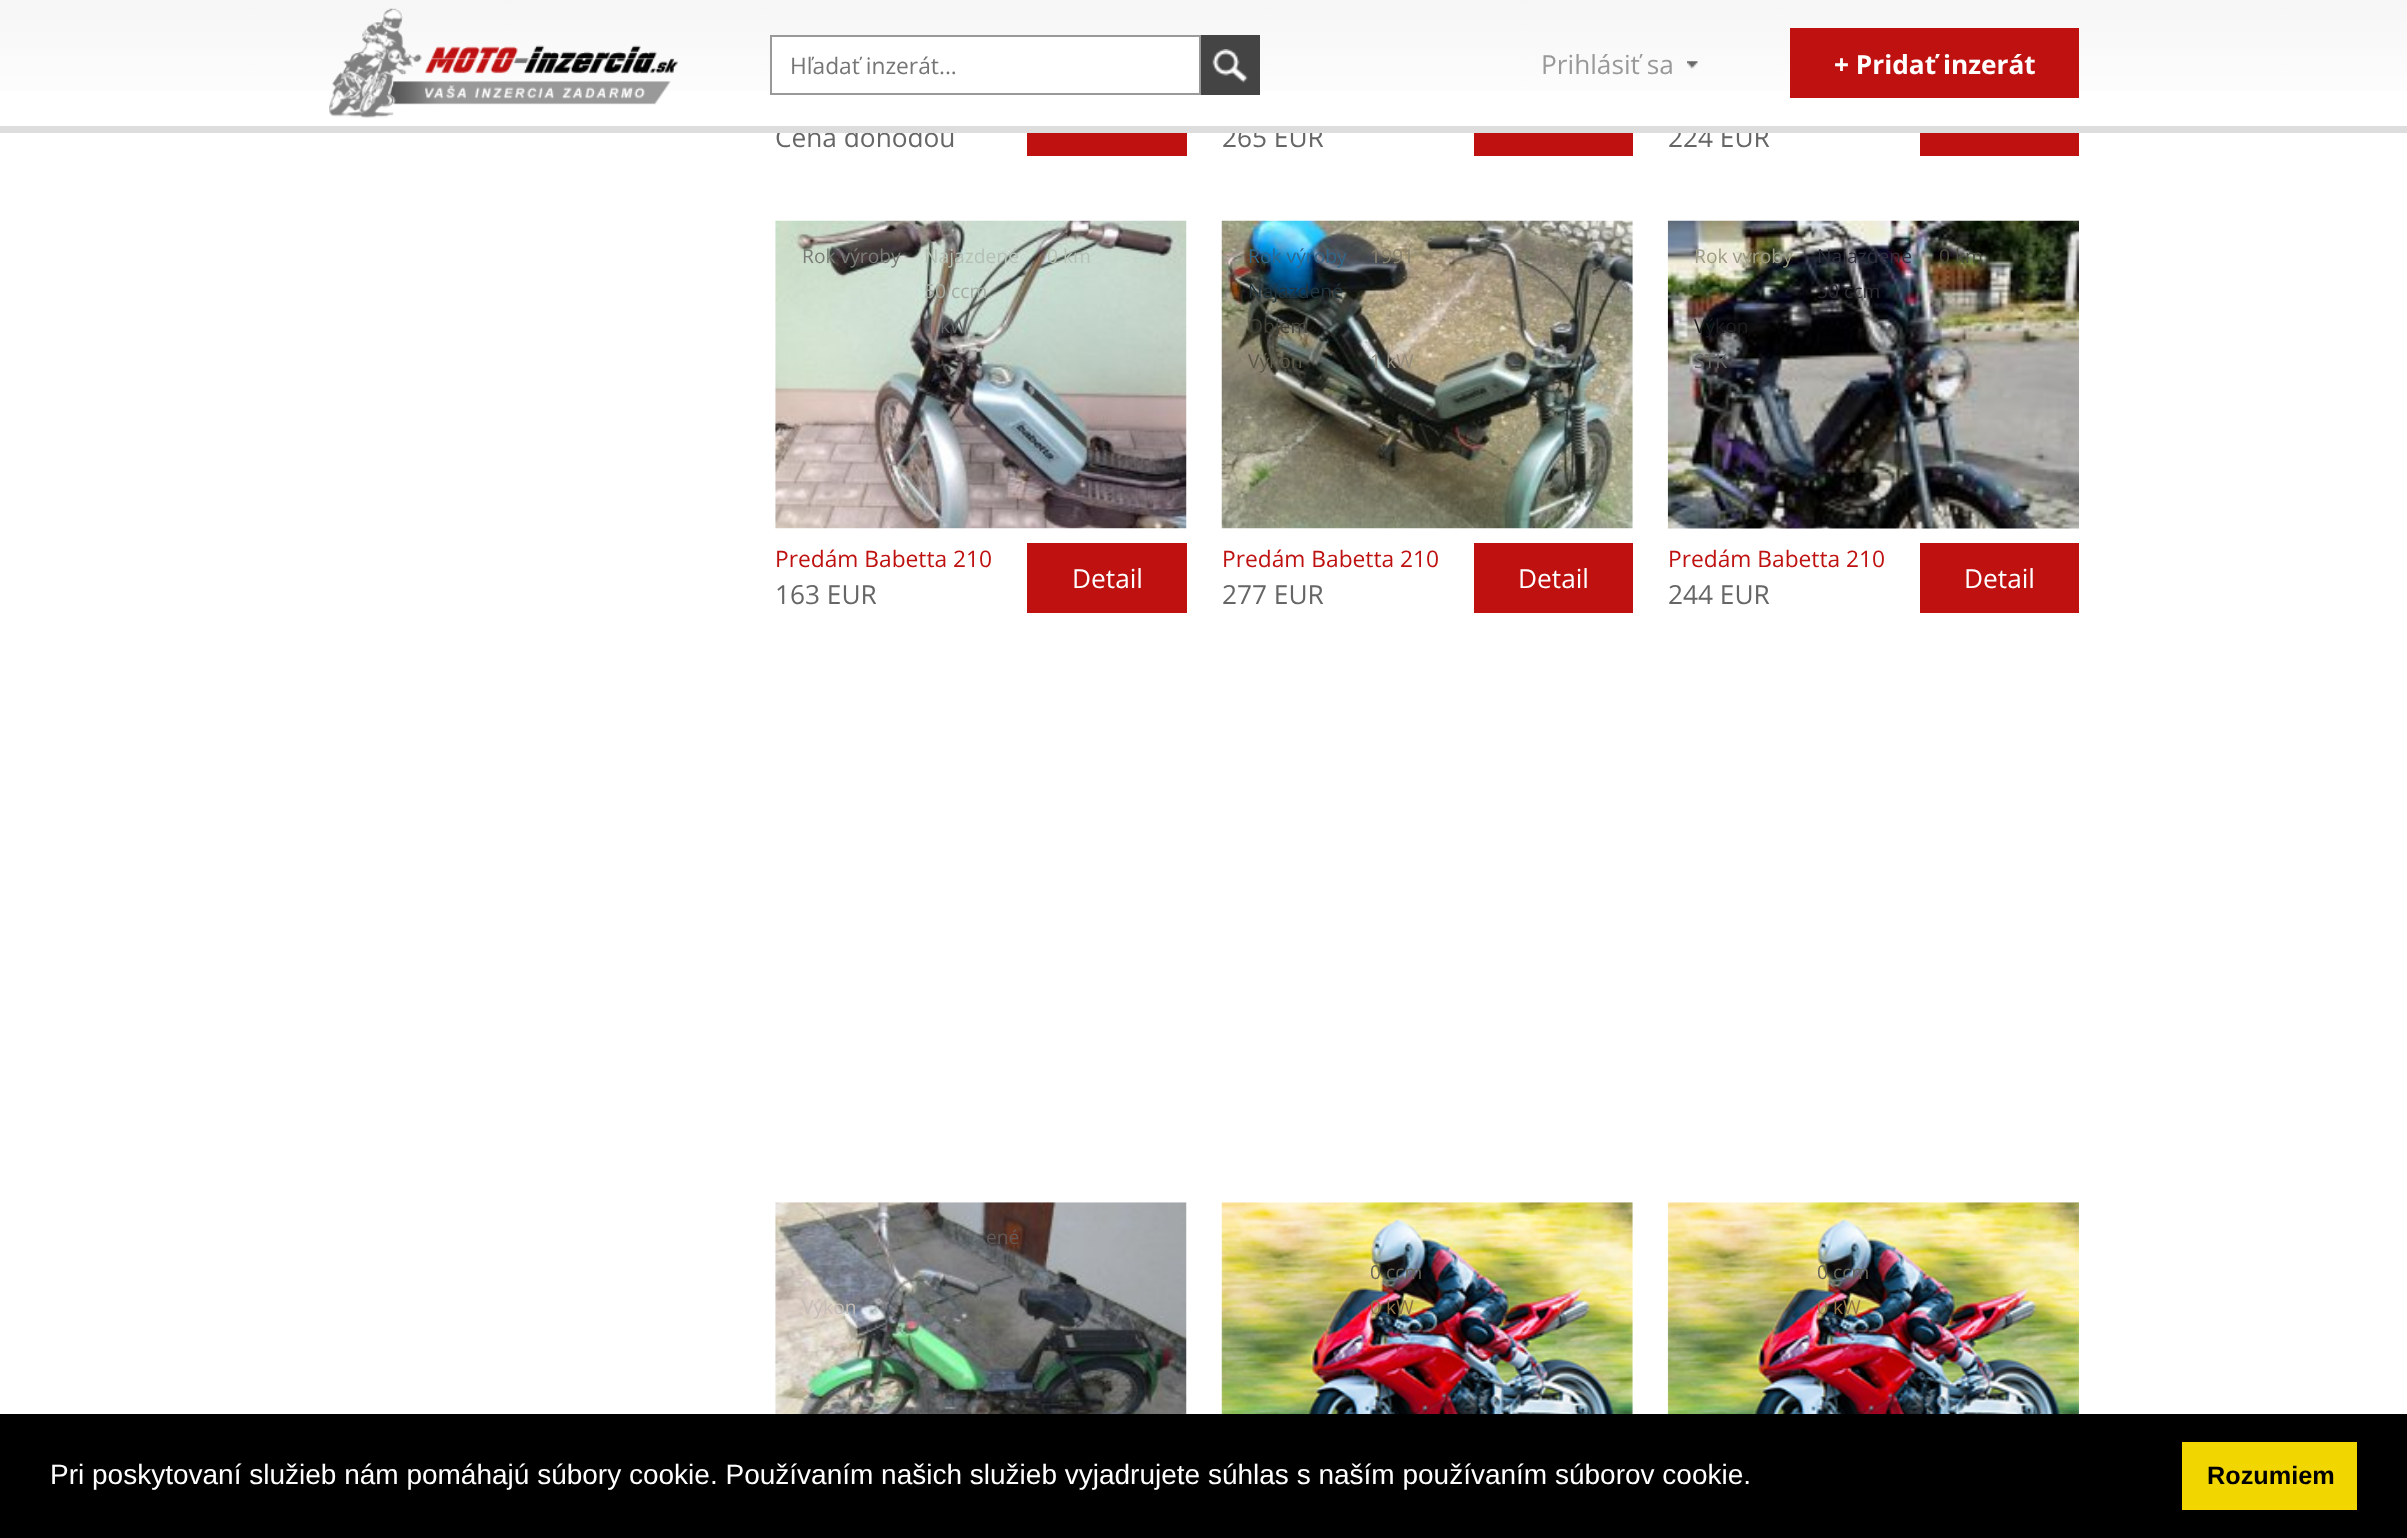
<?xml version="1.0" encoding="UTF-8"?>
<svg xmlns="http://www.w3.org/2000/svg" xmlns:xlink="http://www.w3.org/1999/xlink" width="2407" height="1538">
  <defs>
    <linearGradient id="g1" gradientUnits="userSpaceOnUse" x1="1204" y1="0" x2="1204" y2="126"><stop offset="0" stop-color="#f6f6f6" /><stop offset="1" stop-color="#ffffff" /></linearGradient>
  </defs>
  <rect width="100%" height="100%" fill="#ffffff" />
  <rect width="2407" height="91" fill="url(#g1)" />
  <image x="329" y="8" width="350" height="110" xlink:href="image1.png" />
  <rect x="772" y="37" width="427" height="54" fill="#ffffff" />
  <rect x="771" y="36" width="429" height="58" fill="none" stroke="#999999" stroke-width="2" />
  <rect x="1201" y="35" width="59" height="60" fill="#444444" />
  <image x="1212" y="49" width="36" height="34" xlink:href="image2.png" />
  <image x="1687" y="61" width="11" height="8" xlink:href="image3.png" />
  <rect x="1790" y="28" width="289" height="70" fill="#be1110" />
  <rect x="1027" y="133" width="160" height="23" fill="#be1110" />
  <rect x="1474" y="133" width="159" height="23" fill="#be1110" />
  <rect x="1920" y="133" width="159" height="23" fill="#be1110" />
  <image x="775" y="220" width="412" height="309" xlink:href="image4.png" />
  <rect x="1027" y="543" width="160" height="70" fill="#be1110" />
  <image x="1221" y="220" width="412" height="309" xlink:href="image5.png" />
  <rect x="1474" y="543" width="159" height="70" fill="#be1110" />
  <image x="1667" y="220" width="412" height="309" xlink:href="image6.png" />
  <rect x="1920" y="543" width="159" height="70" fill="#be1110" />
  <image x="775" y="1202" width="412" height="212" xlink:href="image7.png" />
  <image x="1221" y="1202" width="412" height="212" xlink:href="image8.png" />
  <image x="1667" y="1202" width="412" height="212" xlink:href="image9.png" />
  <rect y="1414" width="2407" height="124" fill="#000000" />
  <rect x="2182" y="1442" width="175" height="68" fill="#f1d600" />
  <text x="790" y="74" style="font-family: Open Sans; font-size: 22.75px; fill: #757575">Hľadať inzerát...</text>
  <text x="1541" y="74" style="font-family: Open Sans; font-size: 26.25px; fill: #999999">Prihlásiť sa</text>
  <text x="1834" y="74" style="font-family: Open Sans; font-size: 26.25px; font-weight: bold; fill: #ffffff">+ Pridať inzerát</text>
  <text x="775" y="147" style="font-family: Open Sans; font-size: 26.25px; fill: #666666">Cena dohodou</text>
  <text x="1222" y="147" style="font-family: Open Sans; font-size: 26.25px; fill: #666666">265 EUR</text>
  <text x="1668" y="147" style="font-family: Open Sans; font-size: 26.25px; fill: #666666">224 EUR</text>
  <rect y="126" width="2407" height="7" fill="#dddddd" />
  <text x="802" y="263" style="font-family: Open Sans; font-size: 19.25px; fill: #797c76">Rok výroby</text>
  <text x="924" y="263" style="font-family: Open Sans; font-size: 19.25px; fill: #b5c0b5">Najazdené</text>
  <text x="1047" y="263" style="font-family: Open Sans; font-size: 19.25px; fill: #b5c0b5">0 km</text>
  <text x="924" y="298" style="font-family: Open Sans; font-size: 19.25px; fill: #a4ada3">50 ccm</text>
  <text x="924" y="333" style="font-family: Open Sans; font-size: 19.25px; fill: #606263">1 kW</text>
  <text x="775" y="567" style="font-family: Open Sans; font-size: 22.75px; fill: #be1110">Predám Babetta 210</text>
  <text x="1072" y="588" style="font-family: Open Sans; font-size: 26.25px; fill: #ffffff">Detail</text>
  <text x="775" y="604" style="font-family: Open Sans; font-size: 26.25px; fill: #666666">163 EUR</text>
  <text x="1248" y="263" style="font-family: Open Sans; font-size: 19.25px; fill: #30678b">Rok výroby</text>
  <text x="1370" y="263" style="font-family: Open Sans; font-size: 19.25px; fill: #89826f">1991</text>
  <text x="1248" y="298" style="font-family: Open Sans; font-size: 19.25px; fill: #23363f">Najazdené</text>
  <text x="1248" y="333" style="font-family: Open Sans; font-size: 19.25px; fill: #434239">Objem</text>
  <text x="1248" y="368" style="font-family: Open Sans; font-size: 19.25px; fill: #5b594b">Výkon</text>
  <text x="1370" y="368" style="font-family: Open Sans; font-size: 19.25px; fill: #938c7e">1 kW</text>
  <text x="1222" y="567" style="font-family: Open Sans; font-size: 22.75px; fill: #be1110">Predám Babetta 210</text>
  <text x="1518" y="588" style="font-family: Open Sans; font-size: 26.25px; fill: #ffffff">Detail</text>
  <text x="1222" y="604" style="font-family: Open Sans; font-size: 26.25px; fill: #666666">277 EUR</text>
  <text x="1694" y="263" style="font-family: Open Sans; font-size: 19.25px; fill: #9d9c87">Rok výroby</text>
  <text x="1817" y="263" style="font-family: Open Sans; font-size: 19.25px; fill: #312f3c">Najazdené</text>
  <text x="1939" y="263" style="font-family: Open Sans; font-size: 19.25px; fill: #4c4e3e">0 km</text>
  <text x="1817" y="298" style="font-family: Open Sans; font-size: 19.25px; fill: #2d2d32">50 ccm</text>
  <text x="1694" y="333" style="font-family: Open Sans; font-size: 19.25px; fill: #1f1f21">Výkon</text>
  <text x="1694" y="368" style="font-family: Open Sans; font-size: 19.25px; fill: #666666">STK</text>
  <text x="1668" y="567" style="font-family: Open Sans; font-size: 22.75px; fill: #be1110">Predám Babetta 210</text>
  <text x="1964" y="588" style="font-family: Open Sans; font-size: 26.25px; fill: #ffffff">Detail</text>
  <text x="1668" y="604" style="font-family: Open Sans; font-size: 26.25px; fill: #666666">244 EUR</text>
  <text x="986" y="1244" style="font-family: Open Sans; font-size: 19.25px; fill: #625a58">ené</text>
  <text x="802" y="1314" style="font-family: Open Sans; font-size: 19.25px; fill: #c5bdb8">Výkon</text>
  <text x="1370" y="1279" style="font-family: Open Sans; font-size: 19.25px; fill: #676658">0 ccm</text>
  <text x="1370" y="1314" style="font-family: Open Sans; font-size: 19.25px; fill: #8e7149">0 kW</text>
  <text x="1817" y="1279" style="font-family: Open Sans; font-size: 19.25px; fill: #676658">0 ccm</text>
  <text x="1817" y="1314" style="font-family: Open Sans; font-size: 19.25px; fill: #95744b">0 kW</text>
  <text x="50" y="1484" style="font-family: Liberation Sans; font-size: 28px; fill: #ffffff">Pri poskytovaní služieb nám pomáhajú súbory cookie. Používaním našich služieb vyjadrujete súhlas s naším používaním súborov cookie.</text>
  <text x="2207" y="1484" style="font-family: Liberation Sans; font-size: 25.25px; font-weight: bold; fill: #000000">Rozumiem</text>
</svg>
